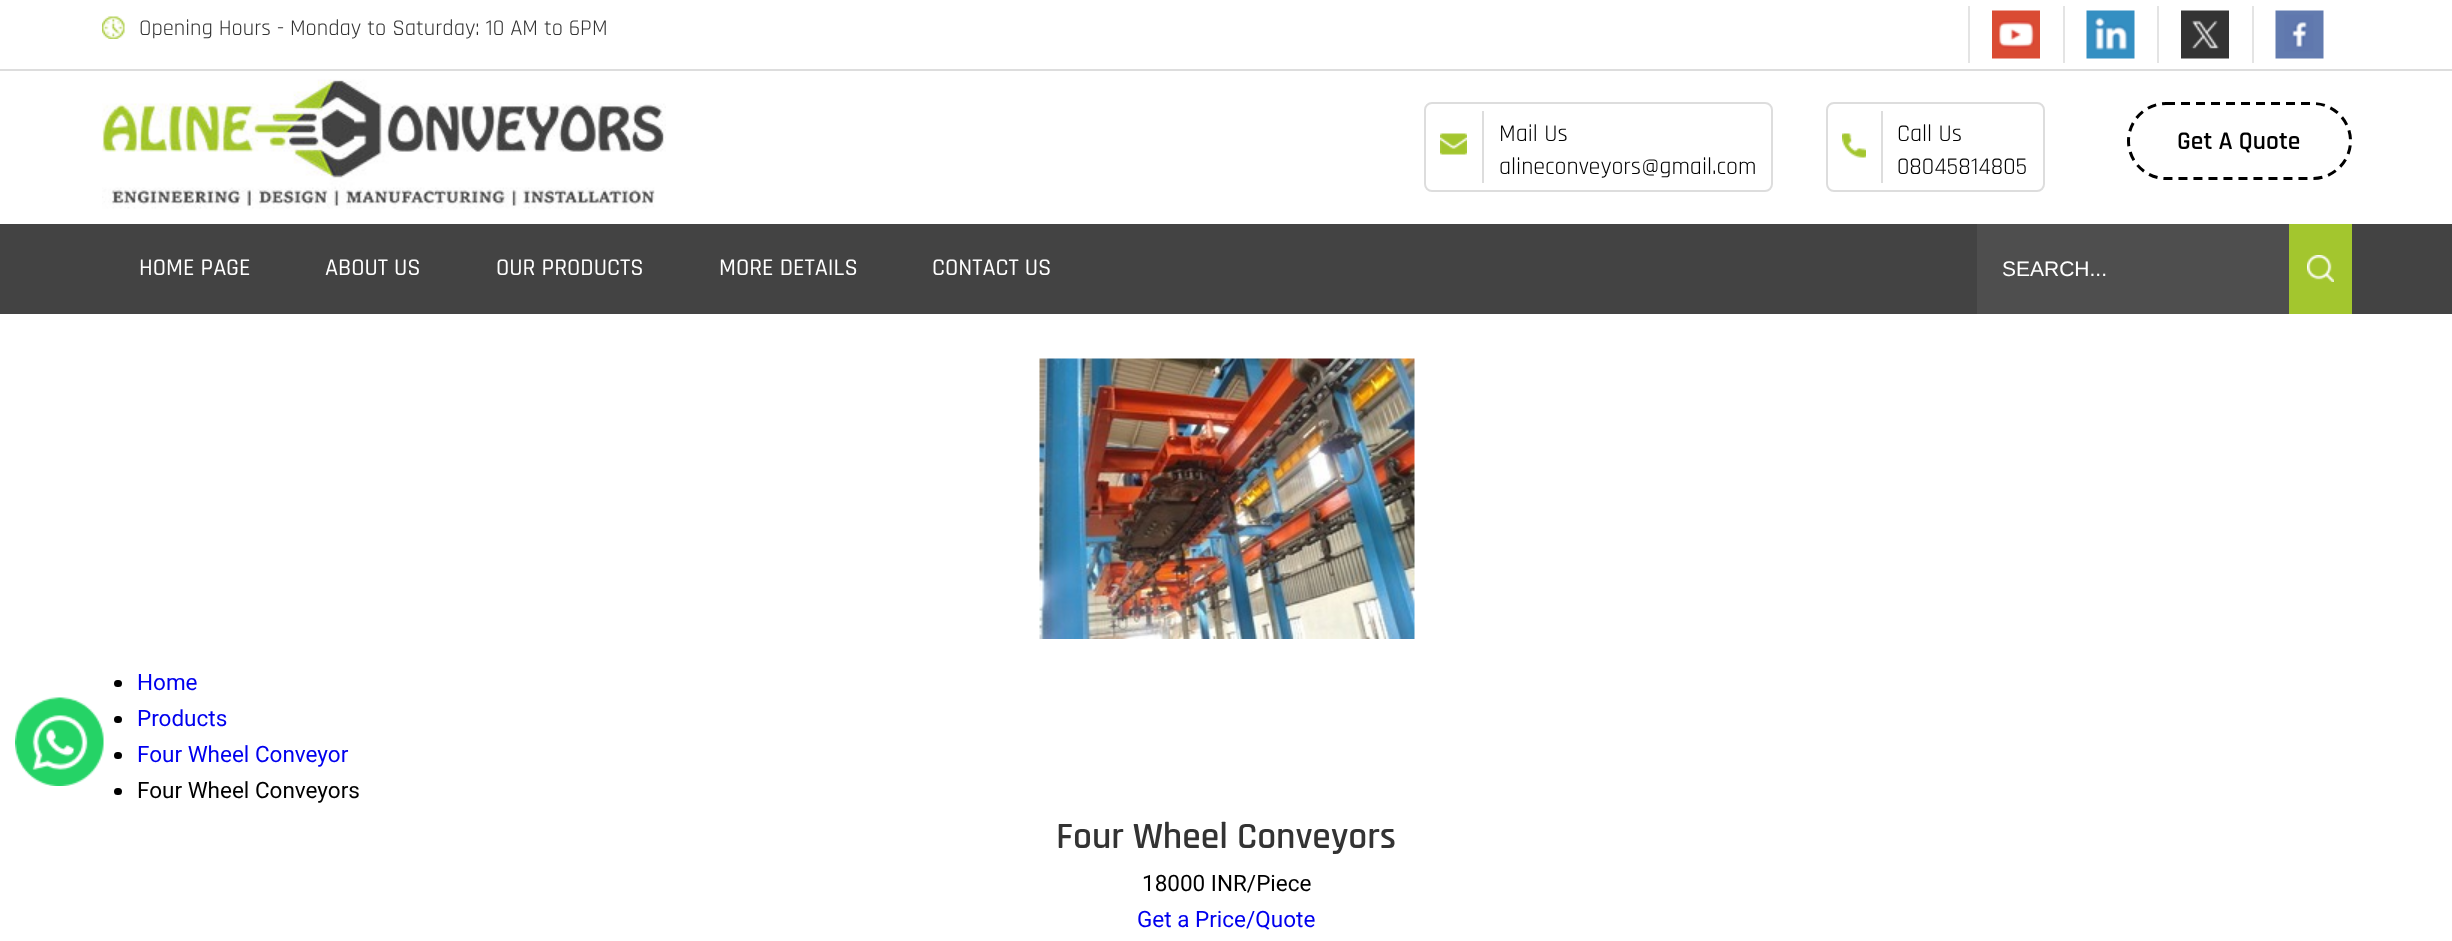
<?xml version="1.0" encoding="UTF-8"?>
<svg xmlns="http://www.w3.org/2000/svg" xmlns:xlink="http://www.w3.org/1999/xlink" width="2452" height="941">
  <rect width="100%" height="100%" fill="#ffffff" />
  <rect y="69" width="2452" height="2" fill="#dddddd" />
  <image x="102" y="16" width="23" height="23" xlink:href="image1.png" />
  <rect x="1968" y="6" width="2" height="57" fill="#e4e4e4" />
  <image x="1992" y="10" width="48" height="49" xlink:href="image2.png" />
  <rect x="2063" y="6" width="2" height="57" fill="#e4e4e4" />
  <image x="2086" y="10" width="49" height="49" xlink:href="image3.png" />
  <rect x="2157" y="6" width="2" height="57" fill="#e4e4e4" />
  <image x="2181" y="10" width="48" height="49" xlink:href="image4.png" />
  <rect x="2252" y="6" width="2" height="57" fill="#e4e4e4" />
  <image x="2275" y="10" width="49" height="49" xlink:href="image5.png" />
  <image x="102" y="79" width="564" height="130" xlink:href="image6.png" />
  <rect x="1425" y="103" width="347" height="88" rx="7" fill="none" stroke="#dddddd" stroke-width="2" />
  <image x="1440" y="133" width="27" height="22" xlink:href="image7.png" />
  <rect x="1482" y="111" width="2" height="72" fill="#dddddd" />
  <rect x="1827" y="103" width="217" height="88" rx="7" fill="none" stroke="#dddddd" stroke-width="2" />
  <image x="1842" y="133" width="24" height="25" xlink:href="image8.png" />
  <rect x="1881" y="111" width="2" height="72" fill="#dddddd" />
  <path d="M 2166 103.5 h 147 c 20.5 0 37.5 17 37.5 37.5 c 0 20.5 -17 37.5 -37.5 37.5 h -147 c -20.5 0 -37.5 -17 -37.5 -37.5 c 0 -20.5 17 -37.5 37.5 -37.5 z" fill="none" stroke="#000000" stroke-width="3" stroke-dasharray="9 6" />
  <rect y="224" width="2452" height="90" fill="#434343" />
  <rect x="1977" y="224" width="312" height="90" fill="#4e4e4e" />
  <rect x="2289" y="224" width="63" height="90" fill="#a3c62e" />
  <image x="2307" y="255" width="27" height="27" xlink:href="image9.png" />
  <image x="15" y="697" width="89" height="89" xlink:href="image10.png" />
  <image x="1039" y="358" width="376" height="281" xlink:href="image11.png" />
  <rect x="114" y="680" width="8" height="7" rx="3.5" fill="#000000" />
  <rect x="114" y="716" width="8" height="7" rx="3.5" fill="#000000" />
  <rect x="114" y="752" width="8" height="7" rx="3.5" fill="#000000" />
  <rect x="114" y="788" width="8" height="7" rx="3.5" fill="#000000" />
  <text x="139" y="35" style="font-family: Rajdhani; font-size: 22.5px; fill: #333333">Opening Hours - Monday to Saturday: 10 AM to 6PM</text>
  <text x="1499" y="141" style="font-family: Rajdhani; font-size: 24px; fill: #000000">Mail Us</text>
  <text x="1499" y="174" style="font-family: Rajdhani; font-size: 24px; fill: #000000">alineconveyors@gmail.com</text>
  <text x="1897" y="141" style="font-family: Rajdhani; font-size: 24px; fill: #000000">Call Us</text>
  <text x="1897" y="174" style="font-family: Rajdhani; font-size: 24px; fill: #000000">08045814805</text>
  <text x="2177" y="149" style="font-family: Rajdhani; font-size: 25.5px; font-weight: 600; fill: #000000">Get A Quote</text>
  <text x="139" y="275" style="font-family: Rajdhani; font-size: 24px; font-weight: 500; fill: #ffffff">HOME PAGE</text>
  <text x="325" y="275" style="font-family: Rajdhani; font-size: 24px; font-weight: 500; fill: #ffffff">ABOUT US</text>
  <text x="496" y="275" style="font-family: Rajdhani; font-size: 24px; font-weight: 500; fill: #ffffff">OUR PRODUCTS</text>
  <text x="719" y="275" style="font-family: Rajdhani; font-size: 24px; font-weight: 500; fill: #ffffff">MORE DETAILS</text>
  <text x="932" y="275" style="font-family: Rajdhani; font-size: 24px; font-weight: 500; fill: #ffffff">CONTACT US</text>
  <text x="2002" y="276" style="font-family: Liberation Sans; font-size: 21px; fill: #ffffff">SEARCH...</text>
  <text x="137" y="690" style="font-family: Roboto; font-size: 22.5px; fill: #0000ee">Home</text>
  <text x="137" y="726" style="font-family: Roboto; font-size: 22.5px; fill: #0000ee">Products</text>
  <text x="137" y="762" style="font-family: Roboto; font-size: 22.5px; fill: #0000ee">Four Wheel Conveyor</text>
  <text x="137" y="798" style="font-family: Roboto; font-size: 22.5px; fill: #000000">Four Wheel Conveyors</text>
  <text x="1056" y="848" style="font-family: Rajdhani; font-size: 37.5px; font-weight: 600; fill: #333333">Four Wheel Conveyors</text>
  <text x="1142" y="891" style="font-family: Roboto; font-size: 22.5px; fill: #000000">18000 INR/Piece</text>
  <text x="1137" y="927" style="font-family: Roboto; font-size: 22.5px; fill: #0000ee">Get a Price/Quote</text>
</svg>
